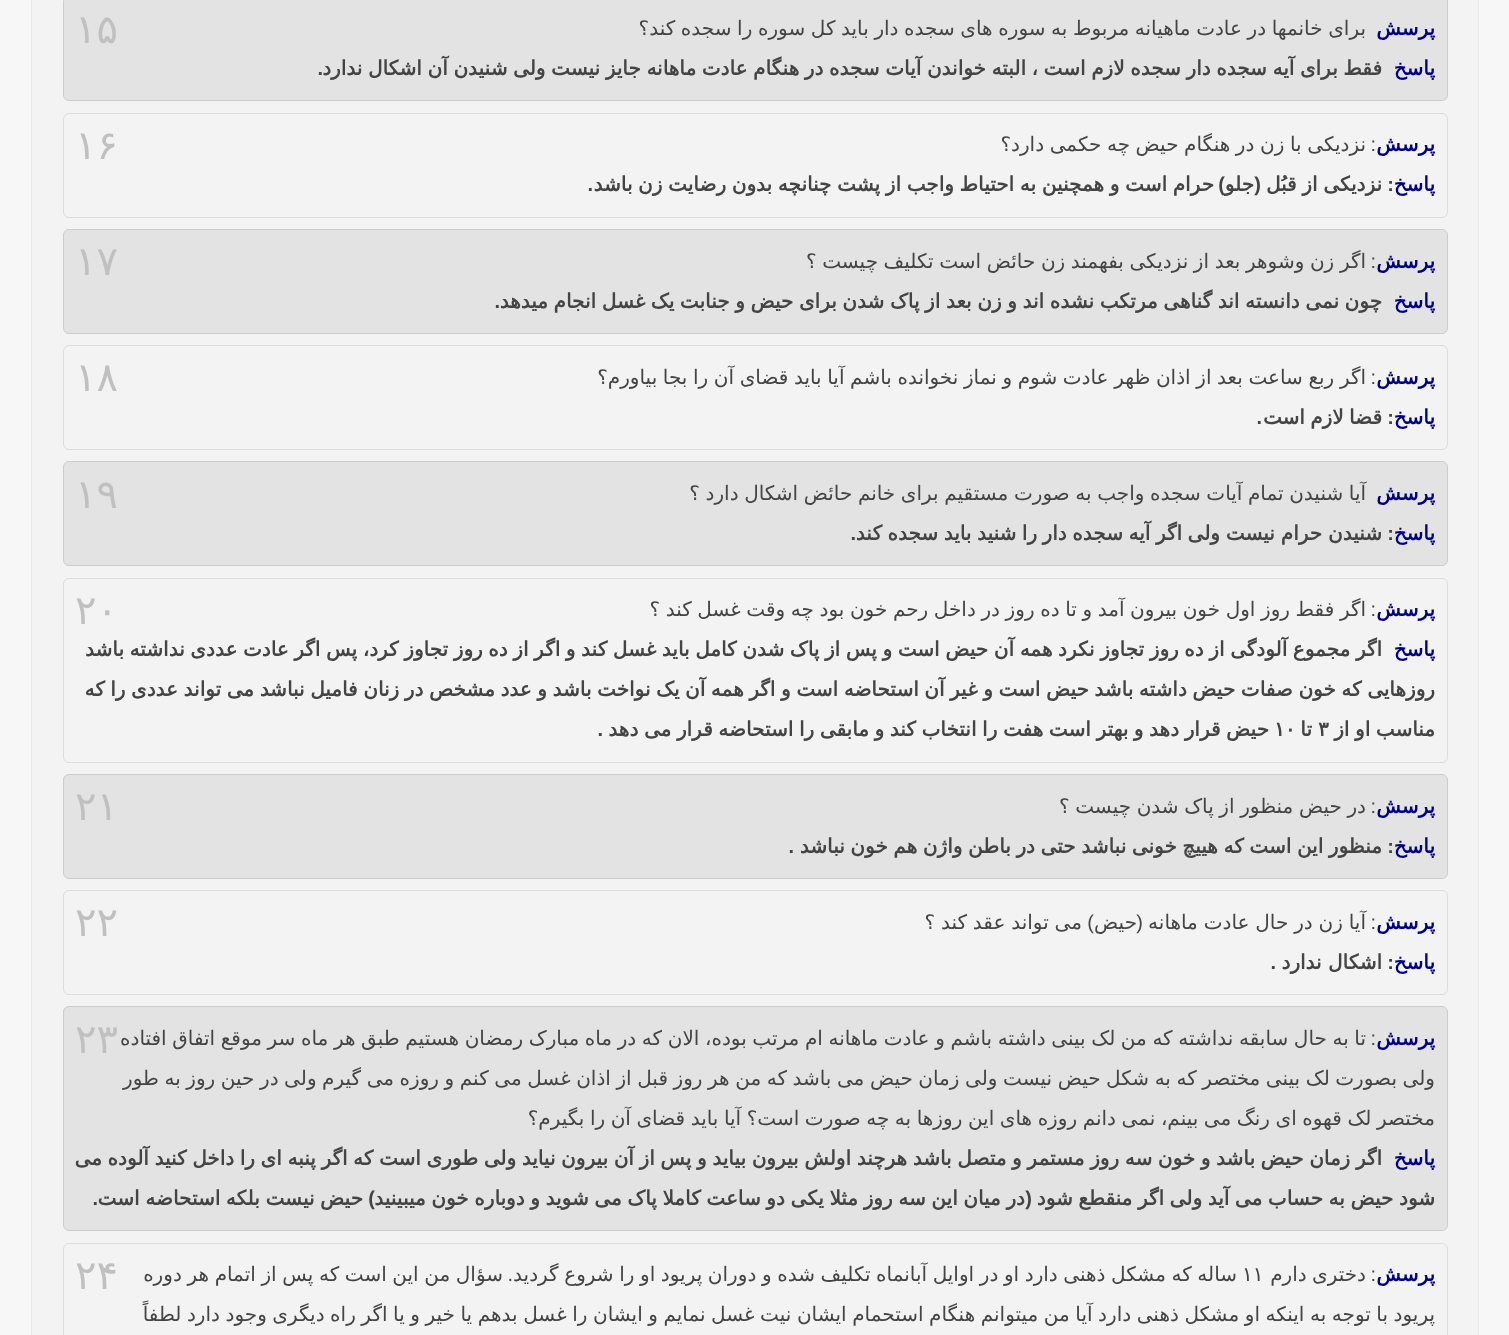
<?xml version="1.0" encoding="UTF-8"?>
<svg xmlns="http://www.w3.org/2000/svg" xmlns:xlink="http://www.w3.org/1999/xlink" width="1509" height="1335">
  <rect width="100%" height="100%" fill="#f7f7f7" />
  <rect x="31.5" y="-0.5" width="1447" height="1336" fill="#f3f3f3" stroke="#e8e8e8" />
  <rect x="63.5" y="-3.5" width="1384" height="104" rx="5.5" fill="#e3e3e3" stroke="#cccccc" />
  <rect x="63.5" y="113.5" width="1384" height="104" rx="5.5" fill="none" stroke="#dddddd" />
  <rect x="63.5" y="229.5" width="1384" height="104" rx="5.5" fill="#e3e3e3" stroke="#cccccc" />
  <rect x="63.5" y="345.5" width="1384" height="104" rx="5.5" fill="none" stroke="#dddddd" />
  <rect x="63.5" y="461.5" width="1384" height="104" rx="5.5" fill="#e3e3e3" stroke="#cccccc" />
  <rect x="63.5" y="578.5" width="1384" height="184" rx="5.5" fill="none" stroke="#dddddd" />
  <rect x="63.5" y="774.5" width="1384" height="104" rx="5.5" fill="#e3e3e3" stroke="#cccccc" />
  <rect x="63.5" y="890.5" width="1384" height="104" rx="5.5" fill="none" stroke="#dddddd" />
  <rect x="63.5" y="1006.5" width="1384" height="224" rx="5.5" fill="#e3e3e3" stroke="#cccccc" />
  <rect x="63.5" y="1243.5" width="1384" height="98" rx="5.5" fill="none" stroke="#dddddd" />
  <text x="1435" y="35" style="font-family: DejaVu Sans; font-size: 20px; font-weight: bold; direction: rtl; fill: #000080">پرسش</text>
  <text x="1366" y="35" word-spacing="-0.75" style="font-family: DejaVu Sans; font-size: 20px; direction: rtl; fill: #444444">برای خانمها در عادت ماهیانه مربوط به سوره های سجده دار باید کل سوره را سجده کند؟</text>
  <text x="1435" y="75" style="font-family: DejaVu Sans; font-size: 20px; font-weight: bold; direction: rtl; fill: #000080">پاسخ</text>
  <text x="1382" y="75" word-spacing="-0.75" style="font-family: DejaVu Sans; font-size: 20px; font-weight: bold; direction: rtl; fill: #444444">فقط برای آیه سجده دار سجده لازم است ، البته خواندن آیات سجده در هنگام عادت ماهانه جایز نیست ولی شنیدن آن اشکال ندارد</text>
  <text x="323" y="75" style="font-family: Liberation Sans; font-size: 20px; font-weight: bold; direction: rtl; fill: #444444">.</text>
  <text x="75" y="43" style="font-family: DejaVu Sans; font-size: 40px; fill: #c0c0c0">۱۵</text>
  <text x="1435" y="151" style="font-family: DejaVu Sans; font-size: 20px; font-weight: bold; direction: rtl; fill: #000080">پرسش</text>
  <text x="1376" y="151" style="font-family: Liberation Sans; font-size: 20px; direction: rtl; fill: #444444">:</text>
  <text x="1366" y="151" word-spacing="-0.75" style="font-family: DejaVu Sans; font-size: 20px; direction: rtl; fill: #444444">نزدیکی با زن در هنگام حیض چه حکمی دارد؟</text>
  <text x="1435" y="191" style="font-family: DejaVu Sans; font-size: 20px; font-weight: bold; direction: rtl; fill: #000080">پاسخ</text>
  <text x="1394" y="191" style="font-family: Liberation Sans; font-size: 20px; font-weight: bold; direction: rtl; fill: #444444">:</text>
  <text x="1382" y="191" word-spacing="-0.7" style="font-family: DejaVu Sans; font-size: 20px; font-weight: bold; direction: rtl; fill: #444444">نزدیکی از قبُل</text>
  <text x="1261" y="191" style="font-family: Liberation Sans; font-size: 20px; font-weight: bold; direction: rtl; fill: #444444">(</text>
  <text x="1214" y="191" word-spacing="-0.7" style="font-family: DejaVu Sans; font-size: 20px; font-weight: bold; direction: rtl; fill: #444444">حرام است و همچنین به احتیاط واجب از پشت چنانچه بدون رضایت زن باشد</text>
  <text x="1225" y="191" style="font-family: Liberation Sans; font-size: 20px; font-weight: bold; direction: rtl; fill: #444444">)</text>
  <text x="1254" y="191" style="font-family: DejaVu Sans; font-size: 20px; font-weight: bold; direction: rtl; fill: #444444">جلو</text>
  <text x="593" y="191" style="font-family: Liberation Sans; font-size: 20px; font-weight: bold; direction: rtl; fill: #444444">.</text>
  <text x="75" y="159" style="font-family: DejaVu Sans; font-size: 40px; fill: #c0c0c0">۱۶</text>
  <text x="1435" y="268" style="font-family: DejaVu Sans; font-size: 20px; font-weight: bold; direction: rtl; fill: #000080">پرسش</text>
  <text x="1366" y="268" word-spacing="-0.75" style="font-family: DejaVu Sans; font-size: 20px; direction: rtl; fill: #444444">اگر زن وشوهر بعد از نزدیکی بفهمند زن حائض است تکلیف چیست ؟</text>
  <text x="1376" y="268" style="font-family: Liberation Sans; font-size: 20px; direction: rtl; fill: #444444">:</text>
  <text x="1435" y="308" style="font-family: DejaVu Sans; font-size: 20px; font-weight: bold; direction: rtl; fill: #000080">پاسخ</text>
  <text x="1382" y="308" word-spacing="-0.75" style="font-family: DejaVu Sans; font-size: 20px; font-weight: bold; direction: rtl; fill: #444444">چون نمی دانسته اند گناهی مرتکب نشده اند و زن بعد از پاک شدن برای حیض و جنابت یک غسل انجام میدهد</text>
  <text x="500" y="308" style="font-family: Liberation Sans; font-size: 20px; font-weight: bold; direction: rtl; fill: #444444">.</text>
  <text x="75" y="275" style="font-family: DejaVu Sans; font-size: 40px; fill: #c0c0c0">۱۷</text>
  <text x="1435" y="384" style="font-family: DejaVu Sans; font-size: 20px; font-weight: bold; direction: rtl; fill: #000080">پرسش</text>
  <text x="1366" y="384" word-spacing="-0.75" style="font-family: DejaVu Sans; font-size: 20px; direction: rtl; fill: #444444">اگر ربع ساعت بعد از اذان ظهر عادت شوم و نماز نخوانده باشم آیا باید قضای آن را بجا بیاورم؟</text>
  <text x="1376" y="384" style="font-family: Liberation Sans; font-size: 20px; direction: rtl; fill: #444444">:</text>
  <text x="1435" y="424" style="font-family: DejaVu Sans; font-size: 20px; font-weight: bold; direction: rtl; fill: #000080">پاسخ</text>
  <text x="1394" y="424" style="font-family: Liberation Sans; font-size: 20px; font-weight: bold; direction: rtl; fill: #444444">:</text>
  <text x="1382" y="424" word-spacing="-1" style="font-family: DejaVu Sans; font-size: 20px; font-weight: bold; direction: rtl; fill: #444444">قضا لازم است</text>
  <text x="1262" y="424" style="font-family: Liberation Sans; font-size: 20px; font-weight: bold; direction: rtl; fill: #444444">.</text>
  <text x="75" y="391" style="font-family: DejaVu Sans; font-size: 40px; fill: #c0c0c0">۱۸</text>
  <text x="1435" y="500" style="font-family: DejaVu Sans; font-size: 20px; font-weight: bold; direction: rtl; fill: #000080">پرسش</text>
  <text x="1366" y="500" word-spacing="-0.75" style="font-family: DejaVu Sans; font-size: 20px; direction: rtl; fill: #444444">آیا شنیدن تمام آیات سجده واجب به صورت مستقیم برای خانم حائض اشکال دارد ؟</text>
  <text x="1435" y="540" style="font-family: DejaVu Sans; font-size: 20px; font-weight: bold; direction: rtl; fill: #000080">پاسخ</text>
  <text x="1394" y="540" style="font-family: Liberation Sans; font-size: 20px; font-weight: bold; direction: rtl; fill: #444444">:</text>
  <text x="1382" y="540" word-spacing="-0.5" style="font-family: DejaVu Sans; font-size: 20px; font-weight: bold; direction: rtl; fill: #444444">شنیدن حرام نیست</text>
  <text x="1220" y="540" word-spacing="-0.8" style="font-family: DejaVu Sans; font-size: 20px; font-weight: bold; direction: rtl; fill: #444444">ولی اگر آیه سجده دار را شنید باید سجده کند</text>
  <text x="856" y="540" style="font-family: Liberation Sans; font-size: 20px; font-weight: bold; direction: rtl; fill: #444444">.</text>
  <text x="75" y="508" style="font-family: DejaVu Sans; font-size: 40px; fill: #c0c0c0">۱۹</text>
  <text x="1435" y="616" style="font-family: DejaVu Sans; font-size: 20px; font-weight: bold; direction: rtl; fill: #000080">پرسش</text>
  <text x="1366" y="616" word-spacing="-0.75" style="font-family: DejaVu Sans; font-size: 20px; direction: rtl; fill: #444444">اگر فقط روز اول خون بیرون آمد و تا ده روز در داخل رحم خون بود چه وقت غسل کند ؟</text>
  <text x="1376" y="616" style="font-family: Liberation Sans; font-size: 20px; direction: rtl; fill: #444444">:</text>
  <text x="1435" y="656" style="font-family: DejaVu Sans; font-size: 20px; font-weight: bold; direction: rtl; fill: #000080">پاسخ</text>
  <text x="1382" y="656" word-spacing="-0.75" style="font-family: DejaVu Sans; font-size: 20px; font-weight: bold; direction: rtl; fill: #444444">اگر مجموع آلودگی از ده روز تجاوز نکرد همه آن حیض است و پس از پاک شدن کامل باید غسل کند و اگر از ده روز تجاوز کرد، پس اگر عادت عددی نداشته باشد</text>
  <text x="1435" y="696" word-spacing="-0.8" style="font-family: DejaVu Sans; font-size: 20px; font-weight: bold; direction: rtl; fill: #444444">روزهایی که خون صفات حیض داشته باشد حیض است و غیر آن استحاضه است و اگر همه آن یک نواخت باشد و عدد مشخص در زنان فامیل نباشد می تواند عددی را که</text>
  <text x="1435" y="736" word-spacing="-0.8" style="font-family: DejaVu Sans; font-size: 20px; font-weight: bold; direction: rtl; fill: #444444">مناسب او از</text>
  <text x="1318" y="736" style="font-family: DejaVu Sans; font-size: 20px; font-weight: bold; fill: #444444">۳</text>
  <text x="1312" y="736" style="font-family: DejaVu Sans; font-size: 20px; font-weight: bold; direction: rtl; fill: #444444">تا</text>
  <text x="1269" y="736" word-spacing="-0.75" style="font-family: DejaVu Sans; font-size: 20px; font-weight: bold; direction: rtl; fill: #444444">حیض قرار دهد و بهتر است هفت را انتخاب کند و مابقی را استحاضه قرار می دهد</text>
  <text x="1274" y="736" style="font-family: DejaVu Sans; font-size: 20px; font-weight: bold; fill: #444444">۱۰</text>
  <text x="603" y="736" style="font-family: Liberation Sans; font-size: 20px; font-weight: bold; direction: rtl; fill: #444444">.</text>
  <text x="75" y="624" style="font-family: DejaVu Sans; font-size: 40px; fill: #c0c0c0">۲۰</text>
  <text x="1435" y="813" style="font-family: DejaVu Sans; font-size: 20px; font-weight: bold; direction: rtl; fill: #000080">پرسش</text>
  <text x="1376" y="813" style="font-family: Liberation Sans; font-size: 20px; direction: rtl; fill: #444444">:</text>
  <text x="1366" y="813" word-spacing="-0.75" style="font-family: DejaVu Sans; font-size: 20px; direction: rtl; fill: #444444">در حیض منظور از پاک شدن چیست ؟</text>
  <text x="1435" y="853" style="font-family: DejaVu Sans; font-size: 20px; font-weight: bold; direction: rtl; fill: #000080">پاسخ</text>
  <text x="1382" y="853" word-spacing="-0.75" style="font-family: DejaVu Sans; font-size: 20px; font-weight: bold; direction: rtl; fill: #444444">منظور این است که هییچ خونی نباشد حتی در باطن واژن هم خون نباشد</text>
  <text x="1394" y="853" style="font-family: Liberation Sans; font-size: 20px; font-weight: bold; direction: rtl; fill: #444444">:</text>
  <text x="794" y="853" style="font-family: Liberation Sans; font-size: 20px; font-weight: bold; direction: rtl; fill: #444444">.</text>
  <text x="75" y="820" style="font-family: DejaVu Sans; font-size: 40px; fill: #c0c0c0">۲۱</text>
  <text x="1435" y="929" style="font-family: DejaVu Sans; font-size: 20px; font-weight: bold; direction: rtl; fill: #000080">پرسش</text>
  <text x="1376" y="929" style="font-family: Liberation Sans; font-size: 20px; direction: rtl; fill: #444444">:</text>
  <text x="1366" y="929" word-spacing="-0.5" style="font-family: DejaVu Sans; font-size: 20px; direction: rtl; fill: #444444">آیا زن در حال عادت ماهانه</text>
  <text x="1143" y="929" style="font-family: Liberation Sans; font-size: 20px; direction: rtl; fill: #444444">(</text>
  <text x="1137" y="929" style="font-family: DejaVu Sans; font-size: 20px; direction: rtl; fill: #444444">حیض</text>
  <text x="1094" y="929" style="font-family: Liberation Sans; font-size: 20px; direction: rtl; fill: #444444">)</text>
  <text x="1082" y="929" word-spacing="-0.5" style="font-family: DejaVu Sans; font-size: 20px; direction: rtl; fill: #444444">می تواند عقد کند ؟</text>
  <text x="1435" y="969" style="font-family: DejaVu Sans; font-size: 20px; font-weight: bold; direction: rtl; fill: #000080">پاسخ</text>
  <text x="1394" y="969" style="font-family: Liberation Sans; font-size: 20px; font-weight: bold; direction: rtl; fill: #444444">:</text>
  <text x="1382" y="969" style="font-family: DejaVu Sans; font-size: 20px; font-weight: bold; direction: rtl; fill: #444444">اشکال ندارد</text>
  <text x="1276" y="969" style="font-family: Liberation Sans; font-size: 20px; font-weight: bold; direction: rtl; fill: #444444">.</text>
  <text x="75" y="936" style="font-family: DejaVu Sans; font-size: 40px; fill: #c0c0c0">۲۲</text>
  <text x="75" y="1053" style="font-family: DejaVu Sans; font-size: 40px; fill: #c0c0c0">۲۳</text>
  <text x="1435" y="1045" style="font-family: DejaVu Sans; font-size: 20px; font-weight: bold; direction: rtl; fill: #000080">پرسش</text>
  <text x="1376" y="1045" style="font-family: Liberation Sans; font-size: 20px; direction: rtl; fill: #444444">:</text>
  <text x="1366" y="1045" word-spacing="-0.75" style="font-family: DejaVu Sans; font-size: 20px; direction: rtl; fill: #444444">تا به حال سابقه نداشته که من لک بینی داشته باشم و عادت ماهانه ام مرتب بوده، الان که در ماه مبارک رمضان هستیم طبق هر ماه سر موقع اتفاق افتاده</text>
  <text x="1435" y="1085" word-spacing="-0.8" style="font-family: DejaVu Sans; font-size: 20px; direction: rtl; fill: #444444">ولی بصورت لک بینی مختصر که به شکل حیض نیست ولی زمان حیض می باشد که من هر روز قبل از اذان غسل می کنم و روزه می گیرم ولی در حین روز به طور</text>
  <text x="1435" y="1125" word-spacing="-0.8" style="font-family: DejaVu Sans; font-size: 20px; direction: rtl; fill: #444444">مختصر لک قهوه ای رنگ می بینم، نمی دانم روزه های این روزها به چه صورت است؟ آیا باید قضای آن را بگیرم؟</text>
  <text x="1435" y="1165" style="font-family: DejaVu Sans; font-size: 20px; font-weight: bold; direction: rtl; fill: #000080">پاسخ</text>
  <text x="1382" y="1165" word-spacing="-0.75" style="font-family: DejaVu Sans; font-size: 20px; font-weight: bold; direction: rtl; fill: #444444">اگر زمان حیض باشد و خون سه روز مستمر و متصل باشد هرچند اولش بیرون بیاید و پس از آن بیرون نیاید ولی طوری است که اگر پنبه ای را داخل کنید آلوده می</text>
  <text x="1435" y="1205" word-spacing="-0.75" style="font-family: DejaVu Sans; font-size: 20px; font-weight: bold; direction: rtl; fill: #444444">شود حیض به حساب می آید ولی اگر منقطع شود</text>
  <text x="1025" y="1205" word-spacing="-0.75" style="font-family: DejaVu Sans; font-size: 20px; font-weight: bold; direction: rtl; fill: #444444">در میان این سه روز مثلا یکی دو ساعت کاملا پاک می شوید و دوباره خون میبینید</text>
  <text x="375" y="1205" style="font-family: Liberation Sans; font-size: 20px; font-weight: bold; direction: rtl; fill: #444444">)</text>
  <text x="363" y="1205" word-spacing="-0.75" style="font-family: DejaVu Sans; font-size: 20px; font-weight: bold; direction: rtl; fill: #444444">حیض نیست بلکه استحاضه است</text>
  <text x="1032" y="1205" style="font-family: Liberation Sans; font-size: 20px; font-weight: bold; direction: rtl; fill: #444444">(</text>
  <text x="98" y="1205" style="font-family: Liberation Sans; font-size: 20px; font-weight: bold; direction: rtl; fill: #444444">.</text>
  <text x="1435" y="1281" style="font-family: DejaVu Sans; font-size: 20px; font-weight: bold; direction: rtl; fill: #000080">پرسش</text>
  <text x="1376" y="1281" style="font-family: Liberation Sans; font-size: 20px; direction: rtl; fill: #444444">:</text>
  <text x="1366" y="1281" word-spacing="-1" style="font-family: DejaVu Sans; font-size: 20px; direction: rtl; fill: #444444">دختری دارم</text>
  <text x="1237" y="1281" word-spacing="-0.75" style="font-family: DejaVu Sans; font-size: 20px; direction: rtl; fill: #444444">ساله که مشکل ذهنی دارد او در اوایل آبانماه تکلیف شده و دوران پریود او را شروع گردید</text>
  <text x="1242" y="1281" style="font-family: DejaVu Sans; font-size: 20px; fill: #444444">۱۱</text>
  <text x="513" y="1281" style="font-family: Liberation Sans; font-size: 20px; direction: rtl; fill: #444444">.</text>
  <text x="503" y="1281" word-spacing="-0.75" style="font-family: DejaVu Sans; font-size: 20px; direction: rtl; fill: #444444">سؤال من این است که پس از اتمام هر دوره</text>
  <text x="75" y="1289" style="font-family: DejaVu Sans; font-size: 40px; fill: #c0c0c0">۲۴</text>
  <text x="1435" y="1321" word-spacing="-0.8" style="font-family: DejaVu Sans; font-size: 20px; direction: rtl; fill: #444444">پریود با توجه به اینکه او مشکل ذهنی دارد آیا من میتوانم هنگام استحمام ایشان نیت غسل نمایم و ایشان را غسل بدهم یا خیر و یا اگر راه دیگری وجود دارد لطفاً</text>
</svg>
